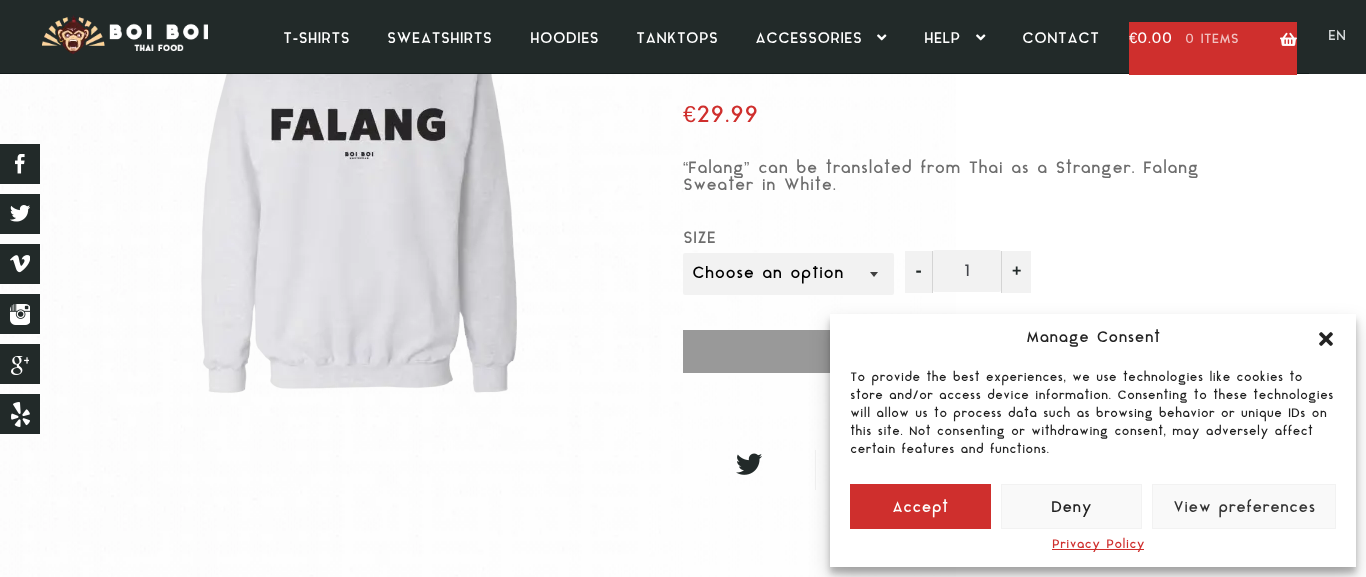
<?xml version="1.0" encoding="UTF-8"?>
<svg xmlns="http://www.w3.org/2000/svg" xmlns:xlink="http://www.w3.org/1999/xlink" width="1366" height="577">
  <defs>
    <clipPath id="clip1"><rect x="692" y="266" width="182" height="18" /></clipPath>
  </defs>
  <rect width="100%" height="100%" fill="#ffffff" />
  <image x="0" y="74" width="956" height="503" xlink:href="image1.png" />
  <rect y="144" width="40" height="40" fill="#222a29" />
  <image x="15" y="154" width="10" height="20" xlink:href="image2.png" />
  <rect y="194" width="40" height="40" fill="#222a29" />
  <image x="10" y="205" width="20" height="17" xlink:href="image3.png" />
  <rect y="244" width="40" height="40" fill="#222a29" />
  <image x="10" y="255" width="20" height="18" xlink:href="image4.png" />
  <rect y="294" width="40" height="40" fill="#222a29" />
  <image x="10" y="304" width="20" height="21" xlink:href="image5.png" />
  <rect y="344" width="40" height="40" fill="#222a29" />
  <image x="11" y="356" width="18" height="19" xlink:href="image6.png" />
  <rect y="394" width="40" height="40" fill="#222a29" />
  <image x="11" y="402" width="19" height="25" xlink:href="image7.png" />
  <rect width="1309" height="73" fill="#222a29" />
  <rect y="73" width="1309" height="1" fill="#131b1a" />
  <image x="877" y="34" width="10" height="7" xlink:href="image8.png" />
  <image x="976" y="34" width="10" height="7" xlink:href="image8.png" />
  <rect x="1129" y="22" width="168" height="53" fill="#cf2f2d" />
  <image x="1280" y="32" width="17" height="14" xlink:href="image9.png" />
  <image x="42" y="15" width="166" height="39" xlink:href="image10.png" />
  <rect x="1309" width="57" height="74" fill="#222a29" />
  <image x="201" y="74" width="316" height="319" xlink:href="image11.png" />
  <rect x="683" y="253" width="211" height="42" rx="2" fill="#f2f2f2" />
  <image x="870" y="272" width="8" height="5" xlink:href="image12.png" />
  <rect x="905" y="251" width="27" height="42" fill="#f2f2f2" />
  <rect x="932" y="251" width="1" height="42" fill="#d4d4d4" />
  <rect x="933" y="250" width="68" height="42" rx="2" fill="#f2f2f2" />
  <rect x="1002" y="251" width="29" height="42" fill="#f2f2f2" />
  <rect x="1001" y="251" width="1" height="42" fill="#d4d4d4" />
  <rect x="683" y="330" width="147" height="43" fill="#999999" />
  <rect x="815" y="450" width="1" height="40" fill="#f1f1f1" />
  <image x="736" y="453" width="26" height="22" xlink:href="image13.png" />
  <rect x="830" y="320" width="526" height="253" fill="#000000" fill-opacity="0.23" filter="blur(3px)" />
  <rect x="830" y="324" width="526" height="253" fill="#000000" fill-opacity="0.19" filter="blur(10px)" />
  <rect x="830" y="314" width="526" height="253" fill="#ffffff" />
  <image x="1319" y="332" width="14" height="14" xlink:href="image14.png" />
  <rect x="850" y="484" width="141" height="45" fill="#cf2f2d" />
  <rect x="1001.5" y="484.5" width="140" height="44" fill="#f9f9f9" stroke="#f2f2f2" />
  <rect x="1152.5" y="484.5" width="183" height="44" fill="#f9f9f9" stroke="#f2f2f2" />
  <rect x="1052" y="549" width="92" height="1" fill="#cf2f2d" />
  <text x="283" y="43" style="font-family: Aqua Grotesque; font-size: 15px; fill: #ffffff">T-SHIRTS</text>
  <text x="387" y="43" style="font-family: Aqua Grotesque; font-size: 15px; fill: #ffffff">SWEATSHIRTS</text>
  <text x="530" y="43" style="font-family: Aqua Grotesque; font-size: 15px; fill: #ffffff">HOODIES</text>
  <text x="636" y="43" style="font-family: Aqua Grotesque; font-size: 15px; fill: #ffffff">TANKTOPS</text>
  <text x="755" y="43" style="font-family: Aqua Grotesque; font-size: 15px; fill: #ffffff">ACCESSORIES</text>
  <text x="924" y="43" style="font-family: Aqua Grotesque; font-size: 15px; fill: #ffffff">HELP</text>
  <text x="1022" y="43" style="font-family: Aqua Grotesque; font-size: 15px; fill: #ffffff">CONTACT</text>
  <text x="1129" y="43" style="font-family: Liberation Sans; font-size: 15px; fill: #ffffff">€</text>
  <text x="1137" y="43" style="font-family: Aqua Grotesque; font-size: 15px; fill: #ffffff">0.00</text>
  <text x="1185" y="43" style="font-family: Aqua Grotesque; font-size: 13px; fill: #f1c1c0">0 ITEMS</text>
  <text x="1328" y="40" style="font-family: Aqua Grotesque; font-size: 14px; fill: #d5d9db">EN</text>
  <text x="683" y="122" style="font-family: Liberation Sans; font-size: 23px; fill: #cf2f2d">€</text>
  <text x="696" y="122" style="font-family: Aqua Grotesque; font-size: 23px; fill: #cf2f2d">29.99</text>
  <text x="683" y="173" style="font-family: Liberation Sans; font-size: 16px; fill: #6d6d6d">“</text>
  <text x="688" y="173" style="font-family: Aqua Grotesque; font-size: 16px; fill: #6d6d6d">Falang</text>
  <text x="744" y="173" style="font-family: Liberation Sans; font-size: 16px; fill: #6d6d6d">”</text>
  <text x="758" y="173" style="font-family: Aqua Grotesque; font-size: 16px; fill: #6d6d6d">can be translated from Thai as a Stranger. Falang</text>
  <text x="683" y="190" style="font-family: Aqua Grotesque; font-size: 16px; fill: #6d6d6d">Sweater in White.</text>
  <text x="683" y="243" style="font-family: Aqua Grotesque; font-size: 16px; fill: #6d6d6d">SIZE</text>
  <g clip-path="url(#clip1)">
    <text x="692" y="278" style="font-family: Aqua Grotesque; font-size: 16px; fill: #000000">Choose an option</text>
  </g>
  <text x="915" y="276" style="font-family: Aqua Grotesque; font-size: 16px; font-weight: bold; fill: #222a29">-</text>
  <text x="964" y="276" style="font-family: Aqua Grotesque; font-size: 16px; fill: #43454b">1</text>
  <text x="1012" y="276" style="font-family: Liberation Sans; font-size: 16px; font-weight: bold; fill: #222a29">+</text>
  <text x="1026" y="342" style="font-family: Aqua Grotesque; font-size: 15px; fill: #222222">Manage Consent</text>
  <text x="850" y="381" style="font-family: Aqua Grotesque; font-size: 12px; fill: #222222">To provide the best experiences</text>
  <text x="1063" y="381" style="font-family: Liberation Sans; font-size: 12px; fill: #222222">,</text>
  <text x="1072" y="381" style="font-family: Aqua Grotesque; font-size: 12px; fill: #222222">we use technologies like cookies to</text>
  <text x="850" y="399" style="font-family: Aqua Grotesque; font-size: 12px; fill: #222222">store and/or access device information. Consenting to these technologies</text>
  <text x="850" y="417" style="font-family: Aqua Grotesque; font-size: 12px; fill: #222222">will allow us to process data such as browsing behavior or unique IDs on</text>
  <text x="850" y="435" style="font-family: Aqua Grotesque; font-size: 12px; fill: #222222">this site. Not consenting or withdrawing consent</text>
  <text x="1163" y="435" style="font-family: Liberation Sans; font-size: 12px; fill: #222222">,</text>
  <text x="1172" y="435" style="font-family: Aqua Grotesque; font-size: 12px; fill: #222222">may adversely affect</text>
  <text x="850" y="453" style="font-family: Aqua Grotesque; font-size: 12px; fill: #222222">certain features and functions.</text>
  <text x="892" y="512" style="font-family: Aqua Grotesque; font-size: 15px; fill: #ffffff">Accept</text>
  <text x="1051" y="512" style="font-family: Aqua Grotesque; font-size: 15px; fill: #222222">Deny</text>
  <text x="1173" y="512" style="font-family: Aqua Grotesque; font-size: 15px; fill: #333333">View preferences</text>
  <text x="1052" y="548" style="font-family: Aqua Grotesque; font-size: 12px; fill: #cf2f2d">Privacy Policy</text>
</svg>
